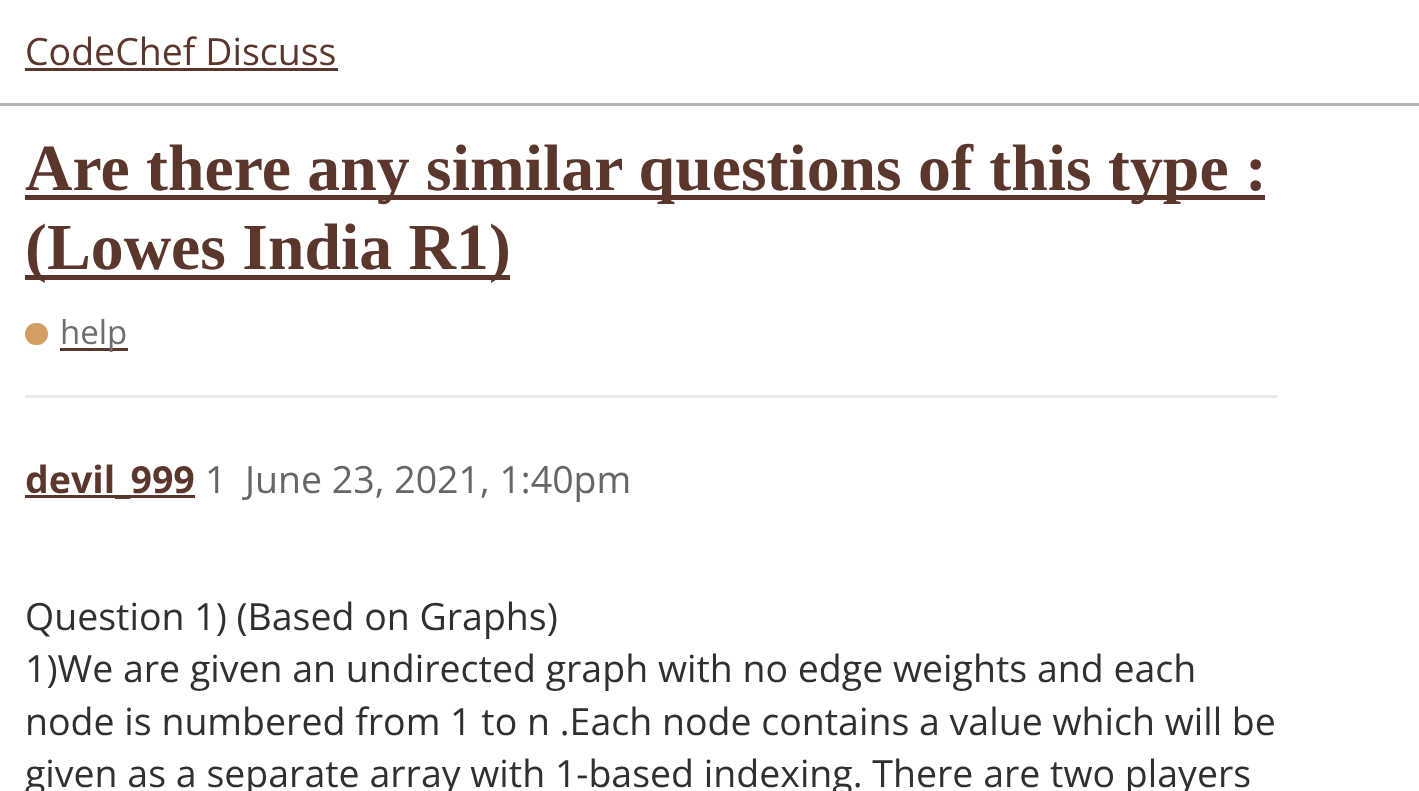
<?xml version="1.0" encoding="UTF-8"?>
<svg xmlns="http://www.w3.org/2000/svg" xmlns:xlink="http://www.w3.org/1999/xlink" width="1419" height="791">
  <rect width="100%" height="100%" fill="#ffffff" />
  <rect y="103" width="1419" height="3" fill="#b4b4b4" />
  <rect x="25" y="68" width="313" height="3" fill="#5b362c" />
  <rect x="25" y="195" width="1240" height="5" fill="#5b362c" />
  <rect x="25" y="275" width="485" height="5" fill="#5b362c" />
  <rect x="25" y="323" width="23" height="22" rx="11" fill="#d39d64" />
  <rect x="60" y="348" width="68" height="3" fill="#5b362c" />
  <rect x="25" y="395" width="1253" height="3" fill="#eaeaea" />
  <rect x="25" y="495" width="170" height="3" fill="#5b362c" />
  <text x="25" y="65" style="font-family: Open Sans; font-size: 37.5px; fill: #5b362c">CodeChef Discuss</text>
  <text x="25" y="190" style="font-family: Liberation Serif; font-size: 65.75px; font-weight: bold; fill: #5b362c">Are there any similar questions of this type :</text>
  <text x="25" y="269" style="font-family: Liberation Serif; font-size: 65.75px; font-weight: bold; fill: #5b362c">(Lowes India R1)</text>
  <text x="60" y="344" style="font-family: Open Sans; font-size: 33px; fill: #6e6e6e">help</text>
  <text x="25" y="493" style="font-family: Open Sans; font-size: 37.5px; font-weight: bold; fill: #5b362c">devil_999</text>
  <text x="205" y="493" style="font-family: Open Sans; font-size: 37.5px; fill: #666666">1</text>
  <text x="245" y="493" style="font-family: Open Sans; font-size: 37.5px; fill: #666666">June 23, 2021, 1:40pm</text>
  <text x="25" y="630" style="font-family: Open Sans; font-size: 37.5px; fill: #303030">Question 1) (Based on Graphs)</text>
  <text x="25" y="682" style="font-family: Open Sans; font-size: 37.5px; fill: #303030">1)We are given an undirected graph with no edge weights and each</text>
  <text x="25" y="735" style="font-family: Open Sans; font-size: 37.5px; fill: #303030">node is numbered from 1 to n .Each node contains a value which will be</text>
  <text x="25" y="787" style="font-family: Open Sans; font-size: 37.5px; fill: #303030">given as a separate array with 1-based indexing. There are two players</text>
</svg>
